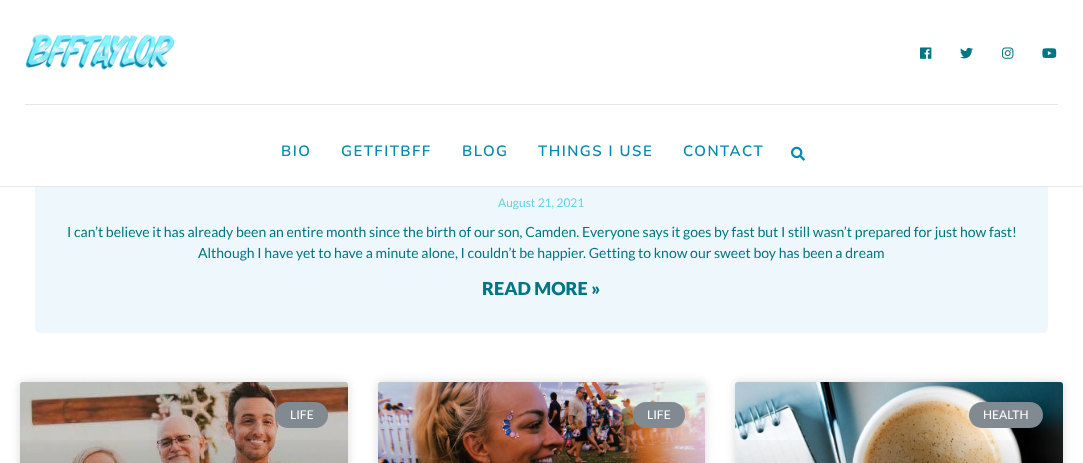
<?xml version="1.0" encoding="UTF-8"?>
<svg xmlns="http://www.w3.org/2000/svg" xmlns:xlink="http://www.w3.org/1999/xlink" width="1083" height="463">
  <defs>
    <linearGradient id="g1" gradientUnits="userSpaceOnUse" x1="184" y1="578" x2="184" y2="382"><stop offset="0" stop-color="#000000" stop-opacity="0.35" /><stop offset="0.75" stop-color="#000000" stop-opacity="0" /></linearGradient>
    <linearGradient id="g2" gradientUnits="userSpaceOnUse" x1="542" y1="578" x2="542" y2="382"><stop offset="0" stop-color="#000000" stop-opacity="0.35" /><stop offset="0.75" stop-color="#000000" stop-opacity="0" /></linearGradient>
    <linearGradient id="g3" gradientUnits="userSpaceOnUse" x1="899" y1="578" x2="899" y2="382"><stop offset="0" stop-color="#000000" stop-opacity="0.35" /><stop offset="0.75" stop-color="#000000" stop-opacity="0" /></linearGradient>
  </defs>
  <rect width="100%" height="100%" fill="#ffffff" />
  <rect x="35" y="-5" width="1013" height="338" rx="5" fill="#eef8fc" />
  <rect x="35" width="1013" height="186" fill="#ffffff" />
  <rect y="186" width="1083" height="1" fill="#e5e6e8" />
  <image x="25" y="34" width="150" height="36" xlink:href="image1.png" />
  <image x="920" y="47" width="12" height="12" xlink:href="image2.png" />
  <image x="960" y="47" width="13" height="12" xlink:href="image3.png" />
  <image x="1002" y="47" width="12" height="12" xlink:href="image4.png" />
  <image x="1042" y="48" width="15" height="10" xlink:href="image5.png" />
  <rect x="25" y="104" width="1033" height="1" fill="#e5e6e8" />
  <image x="791" y="146" width="14" height="15" xlink:href="image6.png" />
  <rect x="20" y="382" width="328" height="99" rx="3" fill="#000000" fill-opacity="0.15" filter="blur(5px)" />
  <image x="20" y="382" width="328" height="81" xlink:href="image7.png" />
  <rect x="20" y="440" width="328" height="23" fill="url(#g1)" />
  <rect x="275" y="402" width="53" height="26" rx="13" fill="#818a91" />
  <rect x="378" y="382" width="327" height="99" rx="3" fill="#000000" fill-opacity="0.15" filter="blur(5px)" />
  <image x="378" y="382" width="327" height="81" xlink:href="image8.png" />
  <rect x="378" y="440" width="327" height="23" fill="url(#g2)" />
  <rect x="633" y="402" width="52" height="26" rx="13" fill="#818a91" />
  <rect x="735" y="382" width="328" height="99" rx="3" fill="#000000" fill-opacity="0.15" filter="blur(5px)" />
  <image x="735" y="382" width="328" height="81" xlink:href="image9.png" />
  <rect x="735" y="440" width="287" height="23" fill="url(#g3)" />
  <rect x="969" y="402" width="74" height="26" rx="13" fill="#818a91" />
  <text x="281" y="156" style="font-family: Nunito; font-size: 15px; font-weight: 600; letter-spacing: 1.5px; fill: #048aad">BIO</text>
  <text x="341" y="156" style="font-family: Nunito; font-size: 15px; font-weight: 600; letter-spacing: 1.5px; fill: #048aad">GETFITBFF</text>
  <text x="462" y="156" style="font-family: Nunito; font-size: 15px; font-weight: 600; letter-spacing: 1.5px; fill: #048aad">BLOG</text>
  <text x="538" y="156" style="font-family: Nunito; font-size: 15px; font-weight: 600; letter-spacing: 1.5px; fill: #048aad">THINGS I USE</text>
  <text x="683" y="156" style="font-family: Nunito; font-size: 15px; font-weight: 600; letter-spacing: 1.5px; fill: #048aad">CONTACT</text>
  <text x="498" y="207" style="font-family: Lato; font-size: 12px; fill: #68d1df">August 21, 2021</text>
  <text x="67" y="237" style="font-family: Lato; font-size: 14px; fill: #007584">I can’t believe it has already been an entire month since the birth of our son, Camden. Everyone says it goes by fast but I still wasn’t prepared for just how fast!</text>
  <text x="198" y="258" style="font-family: Lato; font-size: 14px; fill: #007584">Although I have yet to have a minute alone, I couldn’t be happier. Getting to know our sweet boy has been a dream</text>
  <text x="482" y="295" style="font-family: Lato; font-size: 18px; font-weight: 900; fill: #007584">READ MORE »</text>
  <text x="290" y="419" style="font-family: Lato; font-size: 12px; fill: #ffffff">LIFE</text>
  <text x="647" y="419" style="font-family: Lato; font-size: 12px; fill: #ffffff">LIFE</text>
  <text x="983" y="419" style="font-family: Lato; font-size: 12px; fill: #ffffff">HEALTH</text>
</svg>
